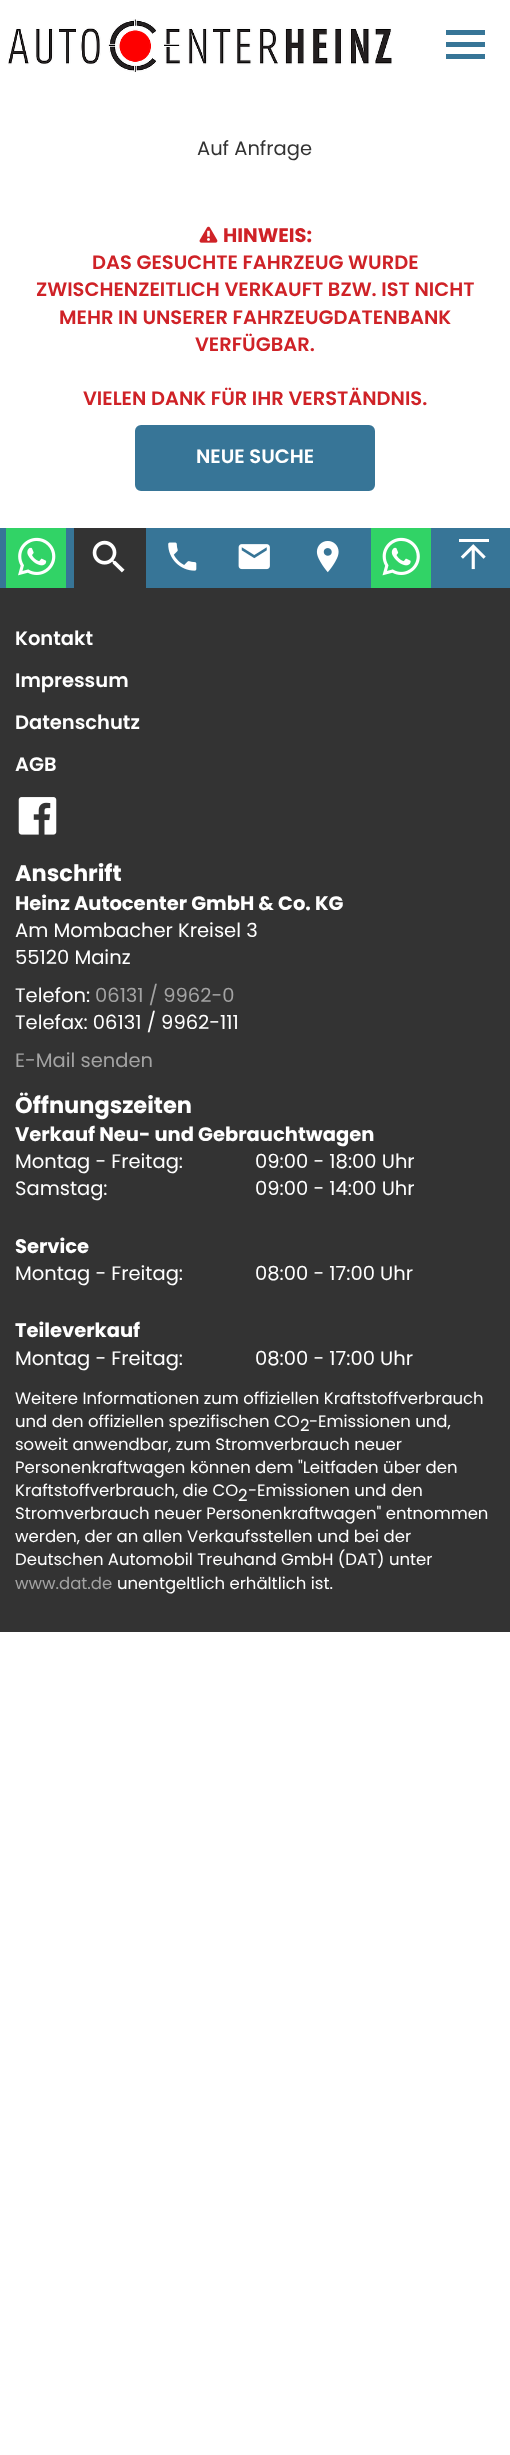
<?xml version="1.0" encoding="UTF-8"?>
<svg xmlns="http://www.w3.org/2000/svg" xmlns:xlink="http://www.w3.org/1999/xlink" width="510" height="2455">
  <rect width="100%" height="100%" fill="#ffffff" />
  <image x="8" y="19" width="384" height="53" xlink:href="image1.png" />
  <rect x="446" y="42" width="39" height="5" fill="#377597" />
  <rect x="446" y="30" width="39" height="5" fill="#377597" />
  <rect x="446" y="54" width="39" height="5" fill="#377597" />
  <image x="199" y="226" width="19" height="17" xlink:href="image2.png" />
  <rect x="136" y="426" width="238" height="64" rx="5" fill="#377597" stroke="#377597" stroke-width="2" />
  <rect x="74" y="528" width="72" height="60" fill="#333333" />
  <rect y="528" width="74" height="60" fill="#377597" />
  <rect x="6" y="528" width="60" height="60" fill="#31d366" />
  <image x="18" y="537" width="38" height="39" xlink:href="image3.png" />
  <rect x="146" y="528" width="364" height="60" fill="#377597" />
  <image x="168" y="542" width="29" height="29" xlink:href="image4.png" />
  <image x="92" y="540" width="33" height="33" xlink:href="image5.png" />
  <image x="238" y="544" width="32" height="26" xlink:href="image6.png" />
  <image x="316" y="541" width="23" height="32" xlink:href="image7.png" />
  <rect x="371" y="528" width="60" height="60" fill="#31d366" />
  <image x="382" y="537" width="38" height="39" xlink:href="image8.png" />
  <rect x="459" y="539" width="30" height="3" fill="#ffffff" />
  <image x="460" y="544" width="26" height="26" xlink:href="image9.png" />
  <rect y="588" width="510" height="1044" fill="#333333" />
  <image x="18" y="797" width="39" height="38" xlink:href="image10.png" />
  <text x="197" y="155" style="font-family: Poppins; font-size: 19.5px; fill: #333333">Auf Anfrage</text>
  <text x="223" y="242" style="font-family: Poppins; font-size: 19.5px; font-weight: bold; fill: #cf2227">HINWEIS:</text>
  <text x="92" y="269" style="font-family: Poppins; font-size: 19.5px; font-weight: 600; fill: #cf2227">DAS GESUCHTE FAHRZEUG WURDE</text>
  <text x="36" y="296" style="font-family: Poppins; font-size: 19.5px; font-weight: 600; fill: #cf2227">ZWISCHENZEITLICH VERKAUFT BZW. IST NICHT</text>
  <text x="59" y="324" style="font-family: Poppins; font-size: 19.5px; font-weight: 600; fill: #cf2227">MEHR IN UNSERER FAHRZEUGDATENBANK</text>
  <text x="195" y="351" style="font-family: Poppins; font-size: 19.5px; font-weight: 600; fill: #cf2227">VERFÜGBAR.</text>
  <text x="83" y="405" style="font-family: Poppins; font-size: 19.5px; font-weight: 600; fill: #cf2227">VIELEN DANK FÜR IHR VERSTÄNDNIS.</text>
  <text x="196" y="463" style="font-family: Poppins; font-size: 19.5px; font-weight: 600; fill: #ffffff">NEUE SUCHE</text>
  <text x="15" y="645" style="font-family: Poppins; font-size: 19.5px; font-weight: 600; fill: #ffffff">Kontakt</text>
  <text x="15" y="687" style="font-family: Poppins; font-size: 19.5px; font-weight: 600; fill: #ffffff">Impressum</text>
  <text x="15" y="729" style="font-family: Poppins; font-size: 19.5px; font-weight: 600; fill: #ffffff">Datenschutz</text>
  <text x="15" y="771" style="font-family: Poppins; font-size: 19.5px; font-weight: 600; fill: #ffffff">AGB</text>
  <text x="15" y="881" style="font-family: Poppins; font-size: 22.5px; font-weight: bold; fill: #ffffff">Anschrift</text>
  <text x="15" y="910" style="font-family: Poppins; font-size: 19.5px; font-weight: bold; fill: #ffffff">Heinz Autocenter GmbH &amp; Co. KG</text>
  <text x="15" y="937" style="font-family: Poppins; font-size: 19.5px; fill: #ffffff">Am Mombacher Kreisel 3</text>
  <text x="15" y="964" style="font-family: Poppins; font-size: 19.5px; fill: #ffffff">55120 Mainz</text>
  <text x="15" y="1002" style="font-family: Poppins; font-size: 19.5px; fill: #ffffff">Telefon:</text>
  <text x="95" y="1002" style="font-family: Poppins; font-size: 19.5px; fill: #a3a3a3">06131 / 9962-0</text>
  <text x="15" y="1029" style="font-family: Poppins; font-size: 19.5px; fill: #ffffff">Telefax: 06131 / 9962-111</text>
  <text x="15" y="1067" style="font-family: Poppins; font-size: 19.5px; fill: #a3a3a3">E-Mail senden</text>
  <text x="15" y="1113" style="font-family: Poppins; font-size: 22.5px; font-weight: bold; fill: #ffffff">Öffnungszeiten</text>
  <text x="15" y="1141" style="font-family: Poppins; font-size: 19.5px; font-weight: bold; fill: #ffffff">Verkauf Neu- und Gebrauchtwagen</text>
  <text x="15" y="1168" style="font-family: Poppins; font-size: 19.5px; fill: #ffffff">Montag - Freitag:</text>
  <text x="255" y="1168" style="font-family: Poppins; font-size: 19.5px; fill: #ffffff">09:00 - 18:00 Uhr</text>
  <text x="15" y="1195" style="font-family: Poppins; font-size: 19.5px; fill: #ffffff">Samstag:</text>
  <text x="255" y="1195" style="font-family: Poppins; font-size: 19.5px; fill: #ffffff">09:00 - 14:00 Uhr</text>
  <text x="15" y="1253" style="font-family: Poppins; font-size: 19.5px; font-weight: bold; fill: #ffffff">Service</text>
  <text x="15" y="1280" style="font-family: Poppins; font-size: 19.5px; fill: #ffffff">Montag - Freitag:</text>
  <text x="255" y="1280" style="font-family: Poppins; font-size: 19.5px; fill: #ffffff">08:00 - 17:00 Uhr</text>
  <text x="15" y="1337" style="font-family: Poppins; font-size: 19.5px; font-weight: bold; fill: #ffffff">Teileverkauf</text>
  <text x="15" y="1365" style="font-family: Poppins; font-size: 19.5px; fill: #ffffff">Montag - Freitag:</text>
  <text x="255" y="1365" style="font-family: Poppins; font-size: 19.5px; fill: #ffffff">08:00 - 17:00 Uhr</text>
  <text x="15" y="1404" style="font-family: Poppins; font-size: 16.5px; fill: #ffffff">Weitere Informationen zum offiziellen Kraftstoffverbrauch</text>
  <text x="15" y="1427" style="font-family: Poppins; font-size: 16.5px; fill: #ffffff">und den offiziellen spezifischen CO</text>
  <text x="300" y="1431" style="font-family: Poppins; font-size: 16.5px; fill: #ffffff">2</text>
  <text x="309" y="1427" style="font-family: Poppins; font-size: 16.5px; fill: #ffffff">-Emissionen und,</text>
  <text x="15" y="1450" style="font-family: Poppins; font-size: 16.5px; fill: #ffffff">soweit anwendbar, zum Stromverbrauch neuer</text>
  <text x="15" y="1473" style="font-family: Poppins; font-size: 16.5px; fill: #ffffff">Personenkraftwagen können dem "Leitfaden über den</text>
  <text x="15" y="1496" style="font-family: Poppins; font-size: 16.5px; fill: #ffffff">Kraftstoffverbrauch, die CO</text>
  <text x="238" y="1501" style="font-family: Poppins; font-size: 16.5px; fill: #ffffff">2</text>
  <text x="248" y="1496" style="font-family: Poppins; font-size: 16.5px; fill: #ffffff">-Emissionen und den</text>
  <text x="15" y="1519" style="font-family: Poppins; font-size: 16.5px; fill: #ffffff">Stromverbrauch neuer Personenkraftwagen" entnommen</text>
  <text x="15" y="1542" style="font-family: Poppins; font-size: 16.5px; fill: #ffffff">werden, der an allen Verkaufsstellen und bei der</text>
  <text x="15" y="1565" style="font-family: Poppins; font-size: 16.5px; fill: #ffffff">Deutschen Automobil Treuhand GmbH (DAT) unter</text>
  <text x="15" y="1589" style="font-family: Poppins; font-size: 16.5px; fill: #a3a3a3">www.dat.de</text>
  <text x="117" y="1589" style="font-family: Poppins; font-size: 16.5px; fill: #ffffff">unentgeltlich erhältlich ist.</text>
</svg>
